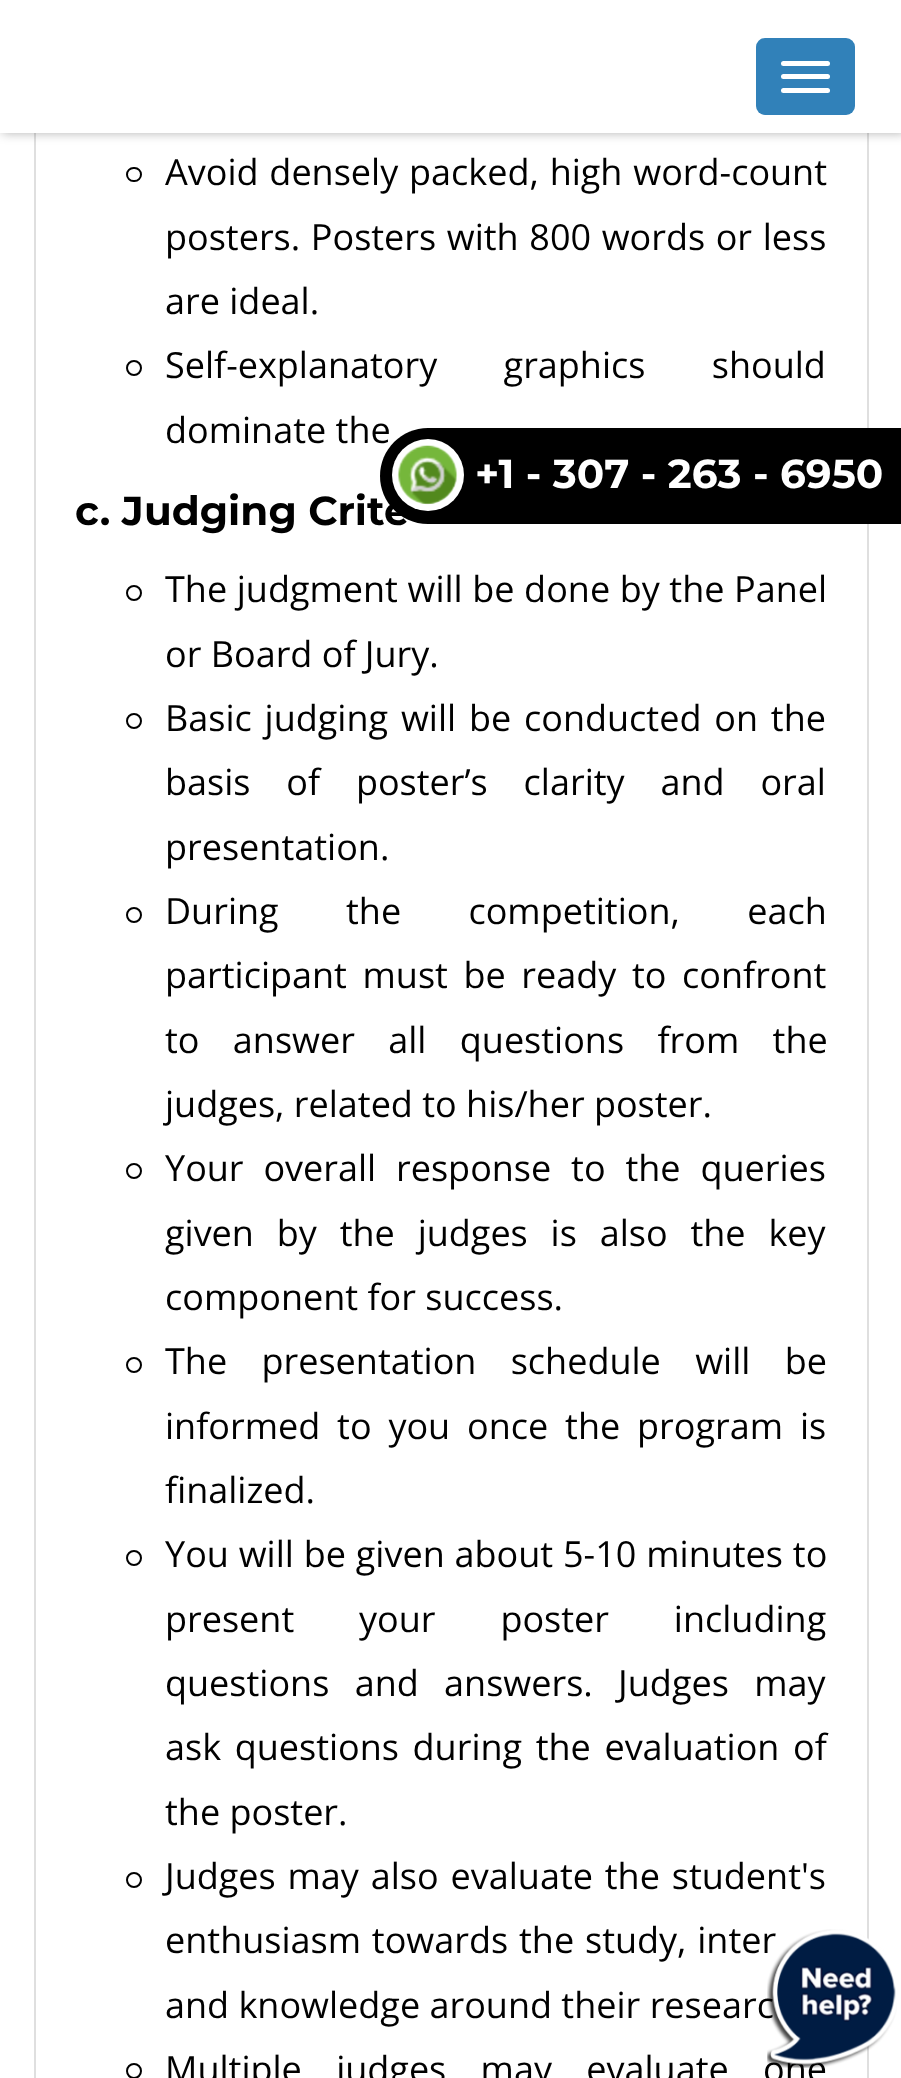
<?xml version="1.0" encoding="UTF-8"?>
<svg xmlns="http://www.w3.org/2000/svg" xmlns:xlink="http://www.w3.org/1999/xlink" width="901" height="2078">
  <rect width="100%" height="100%" fill="#ffffff" />
  <rect x="35" y="-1" width="833" height="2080" fill="none" stroke="#dfdfdf" stroke-width="2" />
  <rect x="2" width="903" height="133" fill="#000000" fill-opacity="0.3" filter="blur(5.5px)" />
  <rect width="901" height="133" fill="#ffffff" />
  <rect x="756" y="38" width="99" height="77" rx="9" fill="#3181b9" />
  <rect x="781" y="61" width="49" height="5" rx="2.5" fill="#ffffff" />
  <rect x="781" y="74" width="49" height="5" rx="2.5" fill="#ffffff" />
  <rect x="781" y="88" width="49" height="5" rx="2.5" fill="#ffffff" />
  <rect x="127" y="168" width="14" height="13" rx="6.5" fill="none" stroke="#000000" stroke-width="2" />
  <circle cx="134" cy="368" r="7" fill="none" stroke="#000000" stroke-width="2" />
  <circle cx="134" cy="593" r="7" fill="none" stroke="#000000" stroke-width="2" />
  <circle cx="134" cy="721" r="7" fill="none" stroke="#000000" stroke-width="2" />
  <circle cx="134" cy="915" r="7" fill="none" stroke="#000000" stroke-width="2" />
  <circle cx="134" cy="1171" r="7" fill="none" stroke="#000000" stroke-width="2" />
  <circle cx="134" cy="1365" r="7" fill="none" stroke="#000000" stroke-width="2" />
  <circle cx="134" cy="1558" r="7" fill="none" stroke="#000000" stroke-width="2" />
  <circle cx="134" cy="1880" r="7" fill="none" stroke="#000000" stroke-width="2" />
  <circle cx="134" cy="2071" r="7" fill="none" stroke="#000000" stroke-width="2" />
  <path d="M 428 428 h 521 v 96 h -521 c -26.5 0 -48 -21.5 -48 -48 c 0 -26.5 21.5 -48 48 -48 z" fill="#000000" />
  <text x="165" y="185" word-spacing="1.5" style="font-family: Open Sans; font-size: 36px; fill: #000000">Avoid densely packed, high word-count</text>
  <text x="165" y="250" word-spacing="1.25" style="font-family: Open Sans; font-size: 36px; fill: #000000">posters. Posters with 800 words or less</text>
  <text x="165" y="314" style="font-family: Open Sans; font-size: 36px; fill: #000000">are ideal.</text>
  <text x="165" y="378" word-spacing="57" style="font-family: Open Sans; font-size: 36px; fill: #000000">Self-explanatory graphics should</text>
  <text x="165" y="443" style="font-family: Open Sans; font-size: 36px; fill: #000000">dominate the</text>
  <text x="75" y="525" style="font-family: Montserrat; font-size: 40.5px; font-weight: bold; fill: #000000">c. Judging Crite</text>
  <text x="165" y="602" word-spacing="0.25" style="font-family: Open Sans; font-size: 36px; fill: #000000">The judgment will be done by the Panel</text>
  <text x="165" y="667" style="font-family: Open Sans; font-size: 36px; fill: #000000">or Board of Jury.</text>
  <text x="165" y="731" word-spacing="3.5" style="font-family: Open Sans; font-size: 36px; fill: #000000">Basic judging will be conducted on the</text>
  <text x="165" y="795" word-spacing="26.5" style="font-family: Open Sans; font-size: 36px; fill: #000000">basis of poster’s clarity and oral</text>
  <text x="165" y="860" style="font-family: Open Sans; font-size: 36px; fill: #000000">presentation.</text>
  <text x="165" y="924" word-spacing="58" style="font-family: Open Sans; font-size: 36px; fill: #000000">During the competition, each</text>
  <text x="165" y="988" word-spacing="6.25" style="font-family: Open Sans; font-size: 36px; fill: #000000">participant must be ready to confront</text>
  <text x="165" y="1053" word-spacing="24" style="font-family: Open Sans; font-size: 36px; fill: #000000">to answer all questions from the</text>
  <text x="165" y="1117" style="font-family: Open Sans; font-size: 36px; fill: #000000">judges, related to his/her poster.</text>
  <text x="165" y="1181" word-spacing="10.5" style="font-family: Open Sans; font-size: 36px; fill: #000000">Your overall response to the queries</text>
  <text x="165" y="1246" word-spacing="13.5" style="font-family: Open Sans; font-size: 36px; fill: #000000">given by the judges is also the key</text>
  <text x="165" y="1310" style="font-family: Open Sans; font-size: 36px; fill: #000000">component for success.</text>
  <text x="165" y="1374" word-spacing="25" style="font-family: Open Sans; font-size: 36px; fill: #000000">The presentation schedule will be</text>
  <text x="165" y="1439" word-spacing="7.5" style="font-family: Open Sans; font-size: 36px; fill: #000000">informed to you once the program is</text>
  <text x="165" y="1503" style="font-family: Open Sans; font-size: 36px; fill: #000000">finalized.</text>
  <text x="165" y="1567" word-spacing="0.5" style="font-family: Open Sans; font-size: 36px; fill: #000000">You will be given about 5-10 minutes to</text>
  <text x="165" y="1632" word-spacing="55.5" style="font-family: Open Sans; font-size: 36px; fill: #000000">present your poster including</text>
  <text x="165" y="1696" word-spacing="16" style="font-family: Open Sans; font-size: 36px; fill: #000000">questions and answers. Judges may</text>
  <text x="165" y="1760" word-spacing="4.25" style="font-family: Open Sans; font-size: 36px; fill: #000000">ask questions during the evaluation of</text>
  <text x="165" y="1825" style="font-family: Open Sans; font-size: 36px; fill: #000000">the poster.</text>
  <text x="165" y="1889" word-spacing="2.5" style="font-family: Open Sans; font-size: 36px; fill: #000000">Judges may also evaluate the student's</text>
  <text x="165" y="1953" word-spacing="1.5" style="font-family: Open Sans; font-size: 36px; fill: #000000">enthusiasm towards the study, inter</text>
  <text x="165" y="2018" style="font-family: Open Sans; font-size: 36px; fill: #000000">and knowledge around their researc</text>
  <text x="165" y="2082" word-spacing="25" style="font-family: Open Sans; font-size: 36px; fill: #000000">Multiple judges may evaluate one</text>
  <circle cx="428" cy="475" r="36" fill="#ffffff" />
  <image x="397" y="445" width="61" height="60" xlink:href="image1.png" />
  <text x="475" y="488" style="font-family: Montserrat; font-size: 40.5px; font-weight: bold; fill: #ffffff">+1 - 307 - 263 - 6950</text>
  <image x="767" y="1929" width="130" height="139" xlink:href="image2.png" />
</svg>
